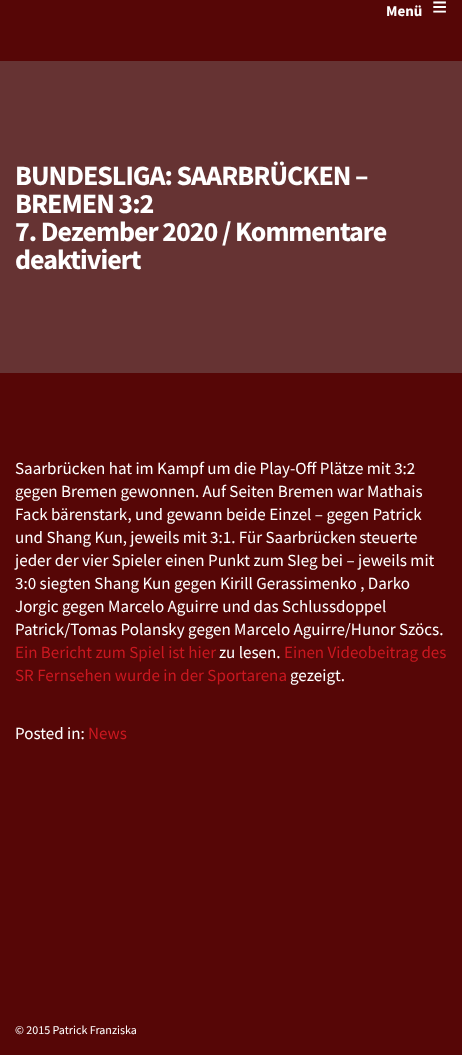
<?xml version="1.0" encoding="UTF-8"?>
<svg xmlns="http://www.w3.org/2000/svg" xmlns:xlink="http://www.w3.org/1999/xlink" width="462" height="1055">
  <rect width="100%" height="100%" fill="#560606" />
  <rect y="61" width="462" height="312" fill="#663333" />
  <text x="386" y="16" style="font-family: Source Sans Pro; font-size: 15px; font-weight: bold; fill: #ffffff">Menü</text>
  <text x="432" y="16" style="font-family: Liberation Serif; font-size: 27px; font-weight: bold; fill: #ffffff">≡</text>
  <text x="15" y="185" style="font-family: Source Sans Pro; font-size: 28px; font-weight: bold; letter-spacing: -1px; fill: #ffffff">BUNDESLIGA: SAARBRÜCKEN –</text>
  <text x="15" y="213" style="font-family: Source Sans Pro; font-size: 28px; font-weight: bold; letter-spacing: -1px; fill: #ffffff">BREMEN 3:2</text>
  <text x="15" y="241" style="font-family: Source Sans Pro; font-size: 28px; font-weight: bold; letter-spacing: -1px; fill: #ffffff">7. Dezember 2020 / Kommentare</text>
  <text x="15" y="269" style="font-family: Source Sans Pro; font-size: 28px; font-weight: bold; letter-spacing: -1px; fill: #ffffff">deaktiviert</text>
  <text x="15" y="474" style="font-family: Source Sans Pro; font-size: 17px; fill: #ffffff">Saarbrücken hat im Kampf um die Play-Off Plätze mit 3:2</text>
  <text x="15" y="497" style="font-family: Source Sans Pro; font-size: 17px; fill: #ffffff">gegen Bremen gewonnen. Auf Seiten Bremen war Mathais</text>
  <text x="15" y="520" style="font-family: Source Sans Pro; font-size: 17px; fill: #ffffff">Fack bärenstark, und gewann beide Einzel – gegen Patrick</text>
  <text x="15" y="543" style="font-family: Source Sans Pro; font-size: 17px; fill: #ffffff">und Shang Kun, jeweils mit 3:1. Für Saarbrücken steuerte</text>
  <text x="15" y="566" style="font-family: Source Sans Pro; font-size: 17px; fill: #ffffff">jeder der vier Spieler einen Punkt zum SIeg bei – jeweils mit</text>
  <text x="15" y="589" style="font-family: Source Sans Pro; font-size: 17px; fill: #ffffff">3:0 siegten Shang Kun gegen Kirill Gerassimenko , Darko</text>
  <text x="15" y="612" style="font-family: Source Sans Pro; font-size: 17px; fill: #ffffff">Jorgic gegen Marcelo Aguirre und das Schlussdoppel</text>
  <text x="15" y="635" style="font-family: Source Sans Pro; font-size: 17px; fill: #ffffff">Patrick/Tomas Polansky gegen Marcelo Aguirre/Hunor Szöcs.</text>
  <text x="15" y="658" style="font-family: Source Sans Pro; font-size: 17px; fill: #ca1820">Ein Bericht zum Spiel ist hier</text>
  <text x="219" y="658" style="font-family: Source Sans Pro; font-size: 17px; fill: #ffffff">zu lesen.</text>
  <text x="284" y="658" style="font-family: Source Sans Pro; font-size: 17px; fill: #ca1820">Einen Videobeitrag des</text>
  <text x="15" y="681" style="font-family: Source Sans Pro; font-size: 17px; fill: #ca1820">SR Fernsehen wurde in der Sportarena</text>
  <text x="290" y="681" style="font-family: Source Sans Pro; font-size: 17px; fill: #ffffff">gezeigt.</text>
  <text x="15" y="739" style="font-family: Source Sans Pro; font-size: 17px; fill: #ffffff">Posted in:</text>
  <text x="88" y="739" style="font-family: Source Sans Pro; font-size: 17px; fill: #ca1820">News</text>
  <text x="15" y="1034" style="font-family: Source Sans Pro; font-size: 12px; fill: #ffffff">© 2015 Patrick Franziska</text>
</svg>
